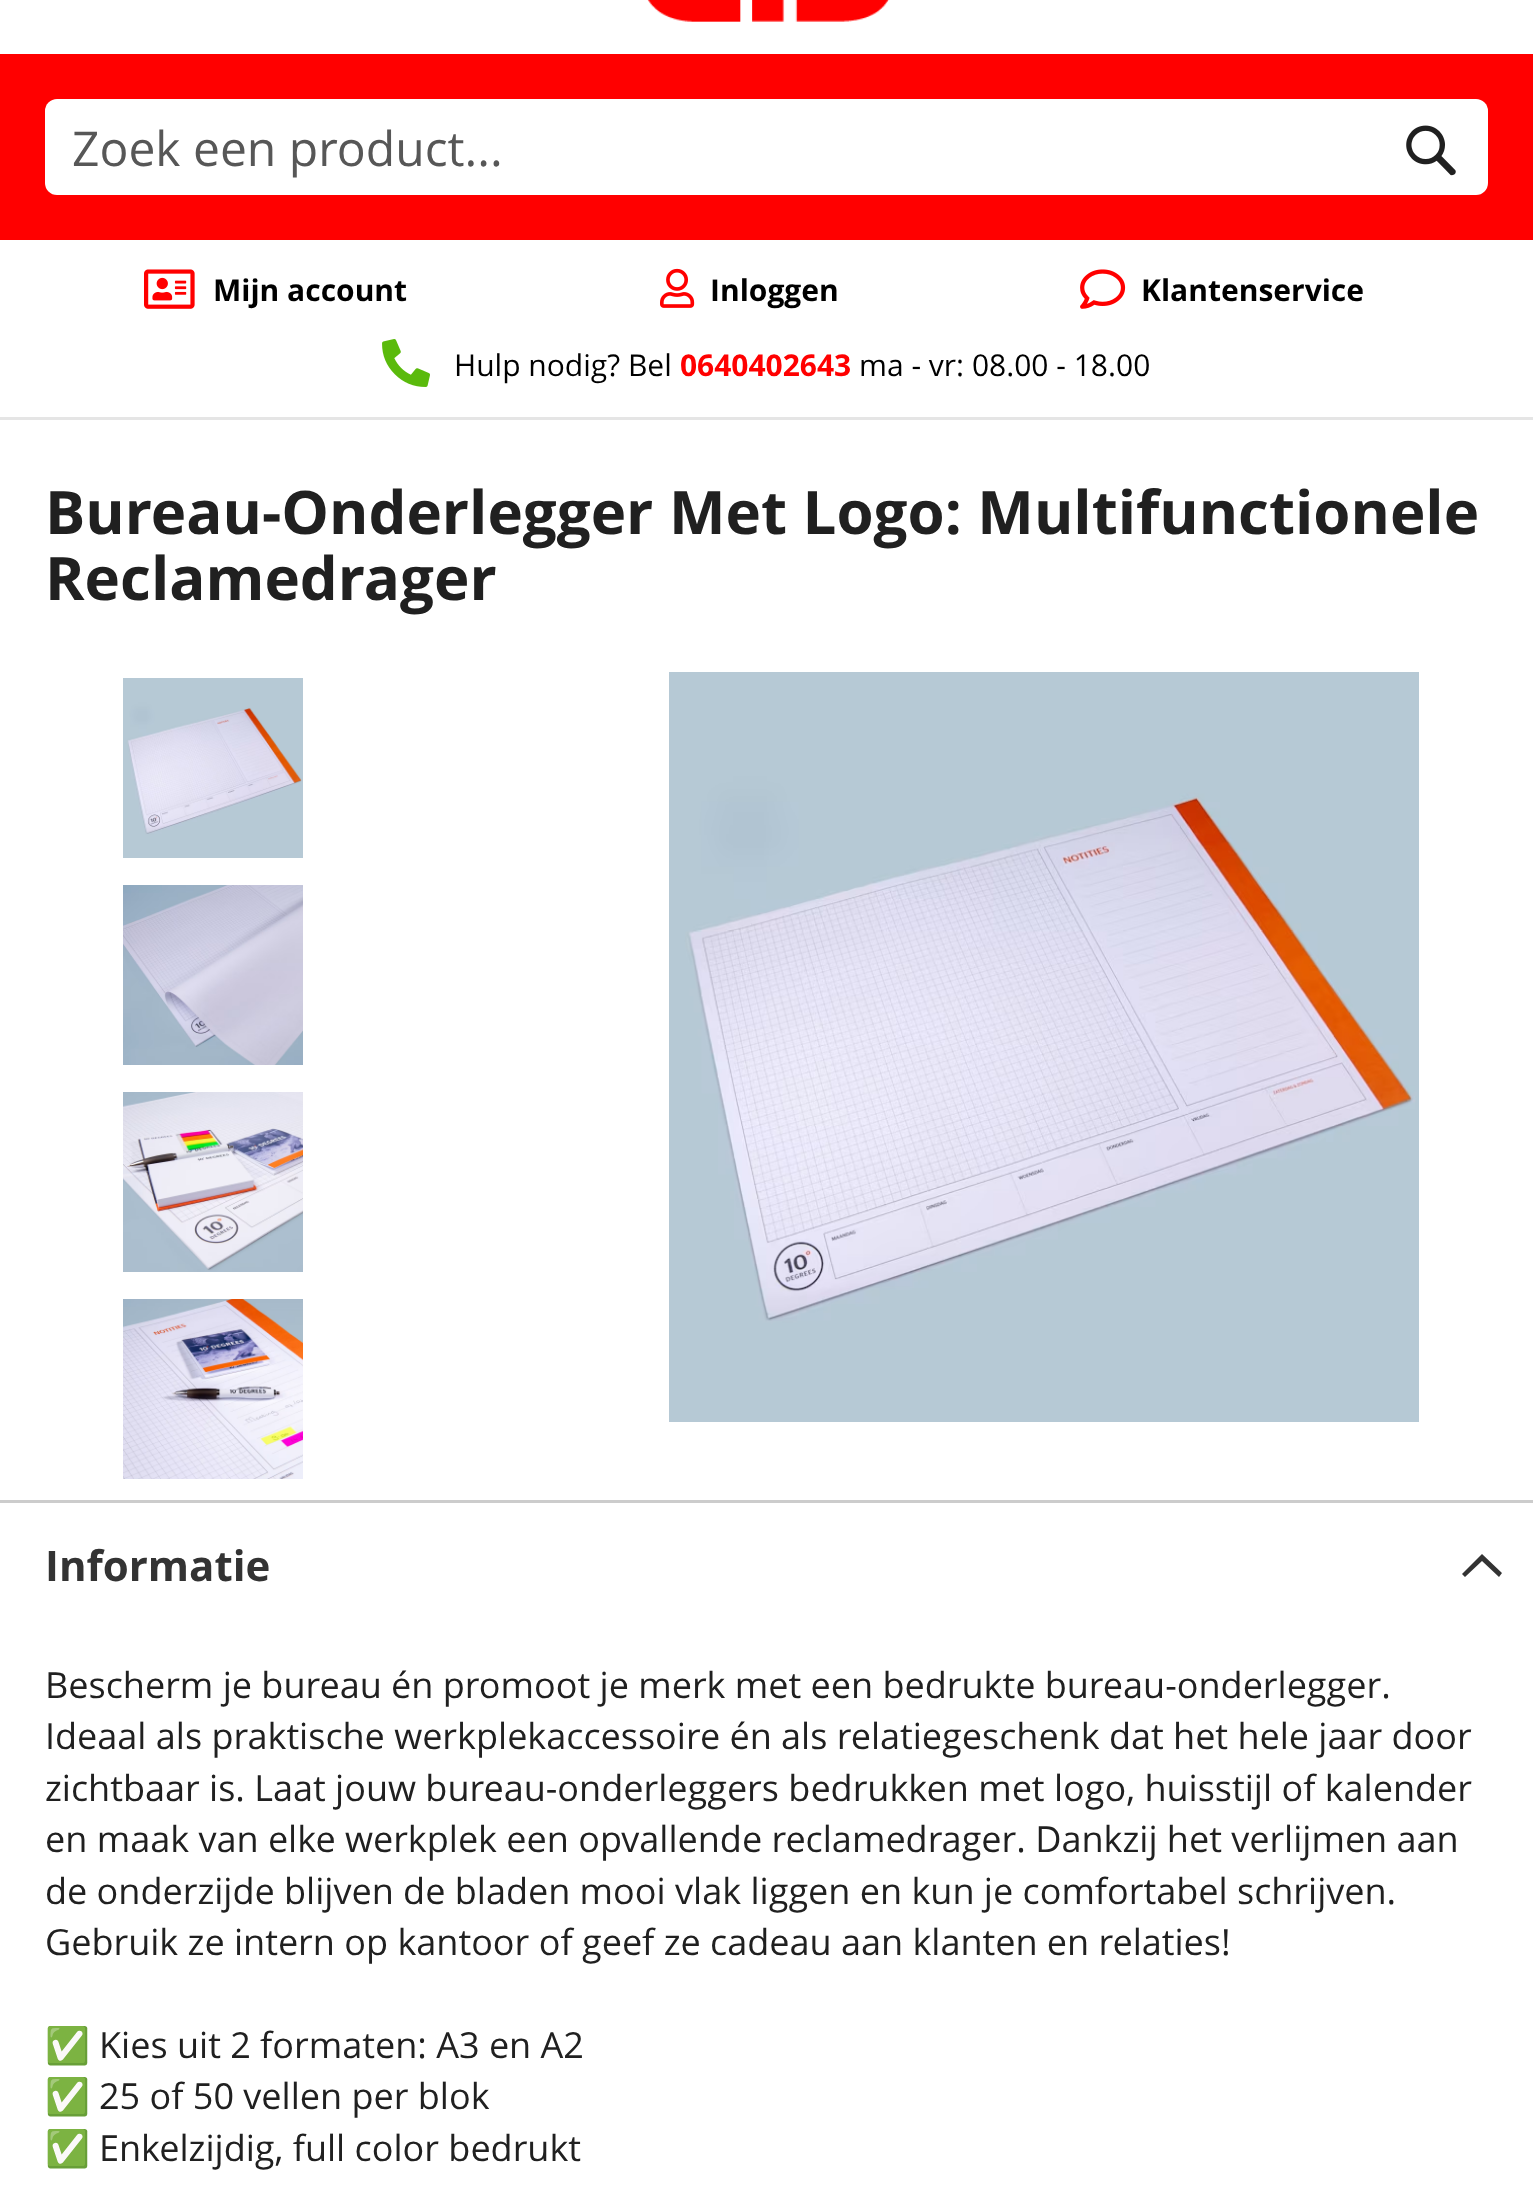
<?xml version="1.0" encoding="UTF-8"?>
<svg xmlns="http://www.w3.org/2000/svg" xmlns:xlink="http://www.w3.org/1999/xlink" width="1533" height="2191">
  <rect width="100%" height="100%" fill="#ffffff" />
  <rect y="417" width="1533" height="3" fill="#e5e5e5" />
  <image x="647" y="0" width="243" height="22" xlink:href="image1.png" />
  <rect y="54" width="1533" height="186" fill="#ff0000" />
  <rect x="45" y="99" width="1443" height="96" rx="12" fill="#ffffff" />
  <image x="1406" y="125" width="50" height="51" xlink:href="image2.png" />
  <image x="144" y="269" width="51" height="40" xlink:href="image3.png" />
  <image x="660" y="268" width="35" height="40" xlink:href="image4.png" />
  <image x="1080" y="269" width="46" height="40" xlink:href="image5.png" />
  <image x="382" y="339" width="48" height="48" xlink:href="image6.png" />
  <image x="123" y="678" width="180" height="180" xlink:href="image7.png" />
  <image x="123" y="885" width="180" height="180" xlink:href="image8.png" />
  <image x="123" y="1092" width="180" height="180" xlink:href="image9.png" />
  <image x="123" y="1299" width="180" height="180" xlink:href="image10.png" />
  <image x="669" y="672" width="750" height="750" xlink:href="image11.png" />
  <rect y="1500" width="1533" height="3" fill="#cccccc" />
  <path d="M 1482 1561 l 17 16 l 3 -4 l -20 -19 l -20 20 l 3 3 z" fill="#333333" />
  <text x="72" y="166" style="font-family: Open Sans; font-size: 48px; fill: #575757">Zoek een product...</text>
  <text x="213" y="301" style="font-family: Open Sans; font-size: 30px; font-weight: bold; fill: #000000">Mijn account</text>
  <text x="710" y="301" style="font-family: Open Sans; font-size: 30px; font-weight: bold; fill: #000000">Inloggen</text>
  <text x="1141" y="301" style="font-family: Open Sans; font-size: 30px; font-weight: bold; fill: #000000">Klantenservice</text>
  <text x="454" y="376" style="font-family: Open Sans; font-size: 30px; fill: #000000">Hulp nodig? Bel</text>
  <text x="680" y="376" style="font-family: Open Sans; font-size: 30px; font-weight: bold; fill: #ff0000">0640402643</text>
  <text x="859" y="376" style="font-family: Open Sans; font-size: 30px; fill: #000000">ma - vr: 08.00 - 18.00</text>
  <text x="45" y="534" style="font-family: Open Sans; font-size: 60px; font-weight: bold; fill: #202020">Bureau-Onderlegger Met Logo: Multifunctionele</text>
  <text x="45" y="600" style="font-family: Open Sans; font-size: 60px; font-weight: bold; fill: #202020">Reclamedrager</text>
  <text x="45" y="1581" style="font-family: Open Sans; font-size: 42px; font-weight: bold; fill: #333333">Informatie</text>
  <text x="45" y="1698" style="font-family: Open Sans; font-size: 36px; fill: #202020">Bescherm je bureau én promoot je merk met een bedrukte bureau-onderlegger.</text>
  <text x="45" y="1749" style="font-family: Open Sans; font-size: 36px; fill: #202020">Ideaal als praktische werkplekaccessoire én als relatiegeschenk dat het hele jaar door</text>
  <text x="45" y="1801" style="font-family: Open Sans; font-size: 36px; fill: #202020">zichtbaar is. Laat jouw bureau-onderleggers bedrukken met logo, huisstijl of kalender</text>
  <text x="45" y="1852" style="font-family: Open Sans; font-size: 36px; fill: #202020">en maak van elke werkplek een opvallende reclamedrager. Dankzij het verlijmen aan</text>
  <text x="45" y="1904" style="font-family: Open Sans; font-size: 36px; fill: #202020">de onderzijde blijven de bladen mooi vlak liggen en kun je comfortabel schrijven.</text>
  <text x="45" y="1955" style="font-family: Open Sans; font-size: 36px; fill: #202020">Gebruik ze intern op kantoor of geef ze cadeau aan klanten en relaties!</text>
  <text x="45" y="2058" style="font-family: Noto Color Emoji; font-size: 36px; fill: #202020">✅</text>
  <text x="99" y="2058" style="font-family: Open Sans; font-size: 36px; fill: #202020">Kies uit 2 formaten: A3 en A2</text>
  <text x="45" y="2109" style="font-family: Noto Color Emoji; font-size: 36px; fill: #202020">✅</text>
  <text x="99" y="2109" style="font-family: Open Sans; font-size: 36px; fill: #202020">25 of 50 vellen per blok</text>
  <text x="45" y="2161" style="font-family: Noto Color Emoji; font-size: 36px; fill: #202020">✅</text>
  <text x="99" y="2161" style="font-family: Open Sans; font-size: 36px; fill: #202020">Enkelzijdig, full color bedrukt</text>
</svg>
